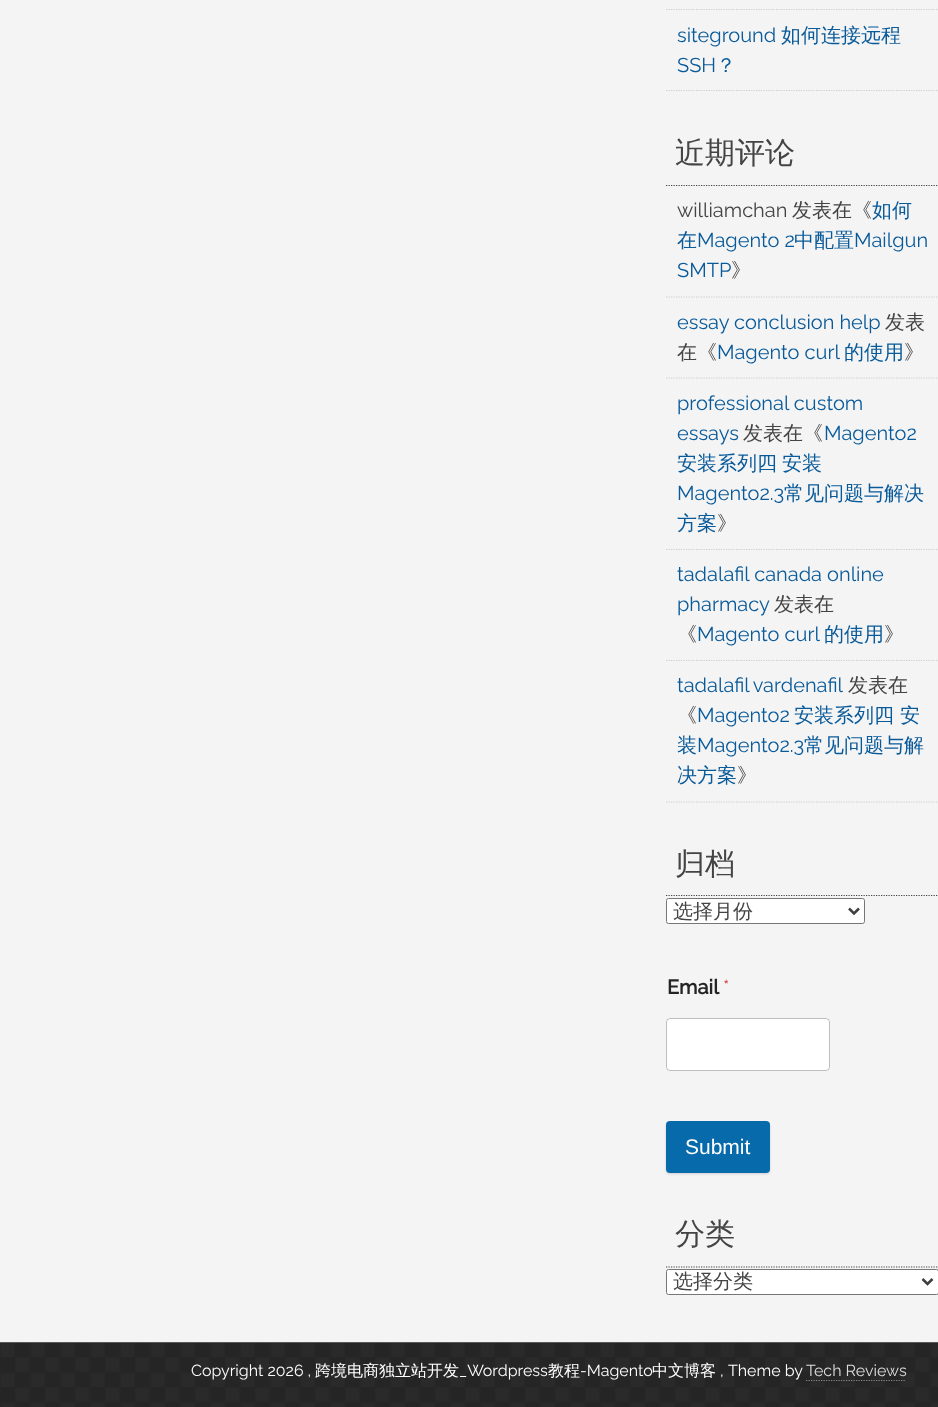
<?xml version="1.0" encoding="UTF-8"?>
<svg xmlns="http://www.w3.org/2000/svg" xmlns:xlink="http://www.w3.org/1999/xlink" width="938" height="1407">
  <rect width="100%" height="100%" fill="#f4f4f5" />
  <path d="M 666 9.5 h 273" fill="none" stroke="#cccccc" stroke-width="1.2" stroke-dasharray="1.25 1.25" />
  <path d="M 666 90.5 h 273" fill="none" stroke="#cccccc" stroke-width="1.2" stroke-dasharray="1.25 1.25" />
  <path d="M 666 185.5 h 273" fill="none" stroke="#444444" stroke-width="1.2" stroke-dasharray="1.25 1.25" />
  <path d="M 666 297 h 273" fill="none" stroke="#cccccc" stroke-width="1.2" stroke-dasharray="1.25 1.25" />
  <path d="M 666 378 h 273" fill="none" stroke="#cccccc" stroke-width="1.2" stroke-dasharray="1.25 1.25" />
  <path d="M 666 549.5 h 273" fill="none" stroke="#cccccc" stroke-width="1.2" stroke-dasharray="1.25 1.25" />
  <path d="M 666 660.5 h 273" fill="none" stroke="#cccccc" stroke-width="1.2" stroke-dasharray="1.25 1.25" />
  <path d="M 666 802 h 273" fill="none" stroke="#cccccc" stroke-width="1.2" stroke-dasharray="1.25 1.25" />
  <path d="M 666 895.5 h 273" fill="none" stroke="#444444" stroke-width="1.2" stroke-dasharray="1.25 1.25" />
  <rect x="666.5" y="898.5" width="198" height="25" rx="2" fill="#ffffff" stroke="#767676" />
  <path d="M 849 908.5 l 5 5 l 5 -5" fill="none" stroke="#404040" stroke-width="2.5" />
  <rect x="666" y="1018" width="164" height="53" rx="4" fill="#ffffff" />
  <rect x="666.5" y="1018.5" width="163" height="52" rx="3.5" fill="none" stroke="#000000" stroke-opacity="0.25" />
  <rect x="666" y="1123" width="104" height="51" rx="4" fill="#000000" fill-opacity="0.15" filter="blur(1px)" />
  <rect x="666" y="1121" width="104" height="52" rx="4" fill="#066aab" />
  <path d="M 666 1267 h 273" fill="none" stroke="#444444" stroke-width="1.2" stroke-dasharray="1.25 1.25" />
  <rect x="666.5" y="1269.5" width="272" height="25" rx="2" fill="#ffffff" stroke="#767676" />
  <path d="M 922.5 1279 l 5 5 l 5 -5" fill="none" stroke="#404040" stroke-width="2.5" />
  <image x="0" y="1342" width="938" height="65" xlink:href="image1.png" />
  <path d="M 806 1380.5 h 100" fill="none" stroke="#888888" stroke-width="1.2" stroke-dasharray="1.25 1.25" />
  <text x="677" y="42" style="font-family: Raleway; font-size: 20px; fill: #095a99">siteground</text>
  <text x="781" y="42" style="font-family: WenQuanYi Zen Hei; font-size: 20px; font-weight: 500; fill: #095a99">如何连接远程</text>
  <text x="677" y="72" style="font-family: Raleway; font-size: 20px; fill: #095a99">SSH</text>
  <text x="716" y="72" style="font-family: WenQuanYi Zen Hei; font-size: 20px; font-weight: 500; fill: #095a99">？</text>
  <text x="675" y="163" style="font-family: WenQuanYi Zen Hei; font-size: 30px; font-weight: 500; fill: #444444">近期评论</text>
  <text x="677" y="217" style="font-family: Raleway; font-size: 20px; fill: #444444">williamchan</text>
  <text x="792" y="217" style="font-family: WenQuanYi Zen Hei; font-size: 20px; font-weight: 500; fill: #444444">发表在《</text>
  <text x="872" y="217" style="font-family: WenQuanYi Zen Hei; font-size: 20px; font-weight: 500; fill: #095a99">如何</text>
  <text x="677" y="247" style="font-family: WenQuanYi Zen Hei; font-size: 20px; font-weight: 500; fill: #095a99">在</text>
  <text x="697" y="247" style="font-family: Raleway; font-size: 20px; fill: #095a99">Magento 2</text>
  <text x="794" y="247" style="font-family: WenQuanYi Zen Hei; font-size: 20px; font-weight: 500; fill: #095a99">中配置</text>
  <text x="854" y="247" style="font-family: Raleway; font-size: 20px; fill: #095a99">Mailgun</text>
  <text x="677" y="277" style="font-family: Raleway; font-size: 20px; fill: #095a99">SMTP</text>
  <text x="731" y="277" style="font-family: WenQuanYi Zen Hei; font-size: 20px; font-weight: 500; fill: #444444">》</text>
  <text x="677" y="329" style="font-family: Raleway; font-size: 20px; fill: #095a99">essay conclusion help</text>
  <text x="885" y="329" style="font-family: WenQuanYi Zen Hei; font-size: 20px; font-weight: 500; fill: #444444">发表</text>
  <text x="677" y="359" style="font-family: WenQuanYi Zen Hei; font-size: 20px; font-weight: 500; fill: #444444">在《</text>
  <text x="717" y="359" style="font-family: Raleway; font-size: 20px; fill: #095a99">Magento curl</text>
  <text x="844" y="359" style="font-family: WenQuanYi Zen Hei; font-size: 20px; font-weight: 500; fill: #095a99">的使用</text>
  <text x="904" y="359" style="font-family: WenQuanYi Zen Hei; font-size: 20px; font-weight: 500; fill: #444444">》</text>
  <text x="677" y="410" style="font-family: Raleway; font-size: 20px; fill: #095a99">professional custom</text>
  <text x="677" y="440" style="font-family: Raleway; font-size: 20px; fill: #095a99">essays</text>
  <text x="743" y="440" style="font-family: WenQuanYi Zen Hei; font-size: 20px; font-weight: 500; fill: #444444">发表在《</text>
  <text x="824" y="440" style="font-family: Raleway; font-size: 20px; fill: #095a99">Magento2</text>
  <text x="677" y="470" word-spacing="-1" style="font-family: WenQuanYi Zen Hei; font-size: 20px; font-weight: 500; fill: #095a99">安装系列四 安装</text>
  <text x="677" y="500" style="font-family: Raleway; font-size: 20px; fill: #095a99">Magento2.3</text>
  <text x="784" y="500" style="font-family: WenQuanYi Zen Hei; font-size: 20px; font-weight: 500; fill: #095a99">常见问题与解决</text>
  <text x="677" y="530" style="font-family: WenQuanYi Zen Hei; font-size: 20px; font-weight: 500; fill: #095a99">方案</text>
  <text x="717" y="530" style="font-family: WenQuanYi Zen Hei; font-size: 20px; font-weight: 500; fill: #444444">》</text>
  <text x="677" y="581" style="font-family: Raleway; font-size: 20px; fill: #095a99">tadalafil canada online</text>
  <text x="677" y="611" style="font-family: Raleway; font-size: 20px; fill: #095a99">pharmacy</text>
  <text x="774" y="611" style="font-family: WenQuanYi Zen Hei; font-size: 20px; font-weight: 500; fill: #444444">发表在</text>
  <text x="677" y="641" style="font-family: WenQuanYi Zen Hei; font-size: 20px; font-weight: 500; fill: #444444">《</text>
  <text x="697" y="641" style="font-family: Raleway; font-size: 20px; fill: #095a99">Magento curl</text>
  <text x="824" y="641" style="font-family: WenQuanYi Zen Hei; font-size: 20px; font-weight: 500; fill: #095a99">的使用</text>
  <text x="884" y="641" style="font-family: WenQuanYi Zen Hei; font-size: 20px; font-weight: 500; fill: #444444">》</text>
  <text x="677" y="692" word-spacing="-1" style="font-family: Raleway; font-size: 20px; fill: #095a99">tadalafil vardenafil</text>
  <text x="848" y="692" style="font-family: WenQuanYi Zen Hei; font-size: 20px; font-weight: 500; fill: #444444">发表在</text>
  <text x="677" y="722" style="font-family: WenQuanYi Zen Hei; font-size: 20px; font-weight: 500; fill: #444444">《</text>
  <text x="697" y="722" style="font-family: Raleway; font-size: 20px; fill: #095a99">Magento2</text>
  <text x="794" y="722" style="font-family: WenQuanYi Zen Hei; font-size: 20px; font-weight: 500; fill: #095a99">安装系列四 安</text>
  <text x="677" y="752" style="font-family: WenQuanYi Zen Hei; font-size: 20px; font-weight: 500; fill: #095a99">装</text>
  <text x="697" y="752" style="font-family: Raleway; font-size: 20px; fill: #095a99">Magento2.3</text>
  <text x="804" y="752" style="font-family: WenQuanYi Zen Hei; font-size: 20px; font-weight: 500; fill: #095a99">常见问题与解</text>
  <text x="677" y="782" style="font-family: WenQuanYi Zen Hei; font-size: 20px; font-weight: 500; fill: #095a99">决方案</text>
  <text x="737" y="782" style="font-family: WenQuanYi Zen Hei; font-size: 20px; font-weight: 500; fill: #444444">》</text>
  <text x="675" y="874" style="font-family: WenQuanYi Zen Hei; font-size: 30px; font-weight: 500; fill: #444444">归档</text>
  <text x="673" y="918" style="font-family: WenQuanYi Zen Hei; font-size: 20px; font-weight: 500; fill: #444444">选择月份</text>
  <text x="667" y="994" style="font-family: Raleway; font-size: 20px; font-weight: bold; fill: #252525">Email</text>
  <text x="723" y="994" style="font-family: Raleway; font-size: 20px; fill: #d63637">*</text>
  <text x="685" y="1154" style="font-family: Liberation Sans; font-size: 21px; fill: #ffffff">Submit</text>
  <text x="675" y="1244" style="font-family: WenQuanYi Zen Hei; font-size: 30px; font-weight: 500; fill: #444444">分类</text>
  <text x="673" y="1288" style="font-family: WenQuanYi Zen Hei; font-size: 20px; font-weight: 500; fill: #444444">选择分类</text>
  <text x="191" y="1376" style="font-family: Raleway; font-size: 16px; fill: #ffffff">Copyright 2026 ,</text>
  <text x="315" y="1376" style="font-family: WenQuanYi Zen Hei; font-size: 16px; font-weight: 500; fill: #ffffff">跨境电商独立站开发</text>
  <text x="459" y="1376" style="font-family: Raleway; font-size: 16px; fill: #ffffff">_Wordpress</text>
  <text x="548" y="1376" style="font-family: WenQuanYi Zen Hei; font-size: 16px; font-weight: 500; fill: #ffffff">教程</text>
  <text x="580" y="1376" style="font-family: Raleway; font-size: 16px; fill: #ffffff">-Magento</text>
  <text x="652" y="1376" style="font-family: WenQuanYi Zen Hei; font-size: 16px; font-weight: 500; fill: #ffffff">中文博客</text>
  <text x="720" y="1376" style="font-family: Raleway; font-size: 16px; fill: #ffffff">,</text>
  <text x="728" y="1376" style="font-family: Raleway; font-size: 16px; fill: #ffffff">Theme by</text>
  <text x="806" y="1376" style="font-family: Raleway; font-size: 16px; fill: #dddddd">Tech Reviews</text>
</svg>
